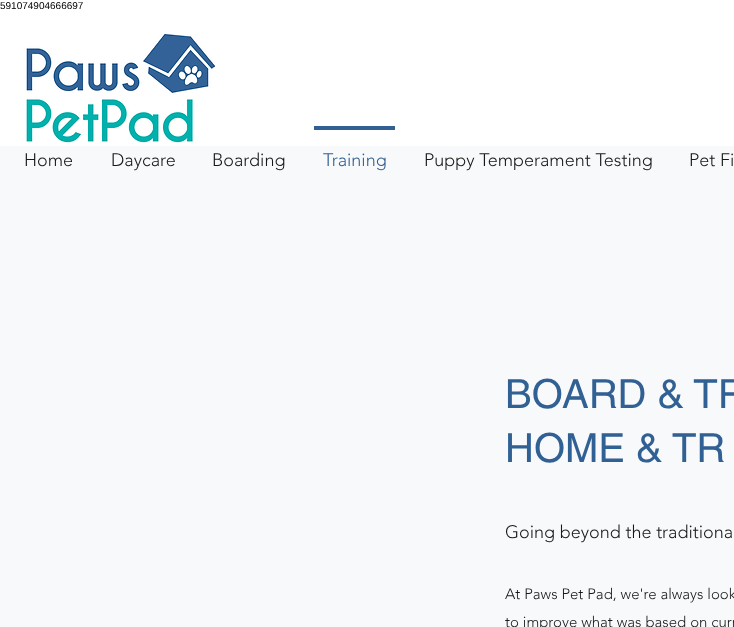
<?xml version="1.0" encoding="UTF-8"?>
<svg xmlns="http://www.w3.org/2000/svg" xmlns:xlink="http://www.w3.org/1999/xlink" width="734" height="627">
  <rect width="100%" height="100%" fill="#ffffff" />
  <image x="26" y="34" width="190" height="109" xlink:href="image1.png" />
  <rect x="314" y="126" width="81" height="4" fill="#316094" />
  <rect y="146" width="734" height="481" fill="#f8f9fa" />
  <text x="0" y="9" style="font-family: Liberation Sans; font-size: 10px; fill: #000000">591074904666697</text>
  <text x="24" y="166" style="font-family: 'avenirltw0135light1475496'; font-size: 18px; font-weight: 300; fill: #181818">Home</text>
  <text x="111" y="166" style="font-family: 'avenirltw0135light1475496'; font-size: 18px; font-weight: 300; fill: #181818">Daycare</text>
  <text x="212" y="166" style="font-family: 'avenirltw0135light1475496'; font-size: 18px; font-weight: 300; fill: #181818">Boarding</text>
  <text x="323" y="166" style="font-family: 'avenirltw0135light1475496'; font-size: 18px; font-weight: 300; fill: #316094">Training</text>
  <text x="424" y="166" style="font-family: 'avenirltw0135light1475496'; font-size: 18px; font-weight: 300; fill: #181818">Puppy Temperament Testing</text>
  <text x="689" y="166" style="font-family: 'avenirltw0135light1475496'; font-size: 18px; font-weight: 300; fill: #181818">Pet Fi</text>
  <text x="505" y="408" style="font-family: helvetica; font-size: 40px; fill: #316094">BOARD &amp; TR</text>
  <text x="505" y="462" style="font-family: helvetica; font-size: 40px; fill: #316094">HOME &amp; TR</text>
  <text x="505" y="538" style="font-family: 'avenirltw0135light1475496'; font-size: 18px; font-weight: 300; fill: #181818">Going beyond the traditiona</text>
  <text x="505" y="599" style="font-family: 'avenirltw0135light1475496'; font-size: 15px; font-weight: 300; fill: #181818">At Paws Pet Pad, we're always look</text>
  <text x="505" y="627" style="font-family: 'avenirltw0135light1475496'; font-size: 15px; font-weight: 300; fill: #181818">to improve what was based on curr</text>
</svg>
